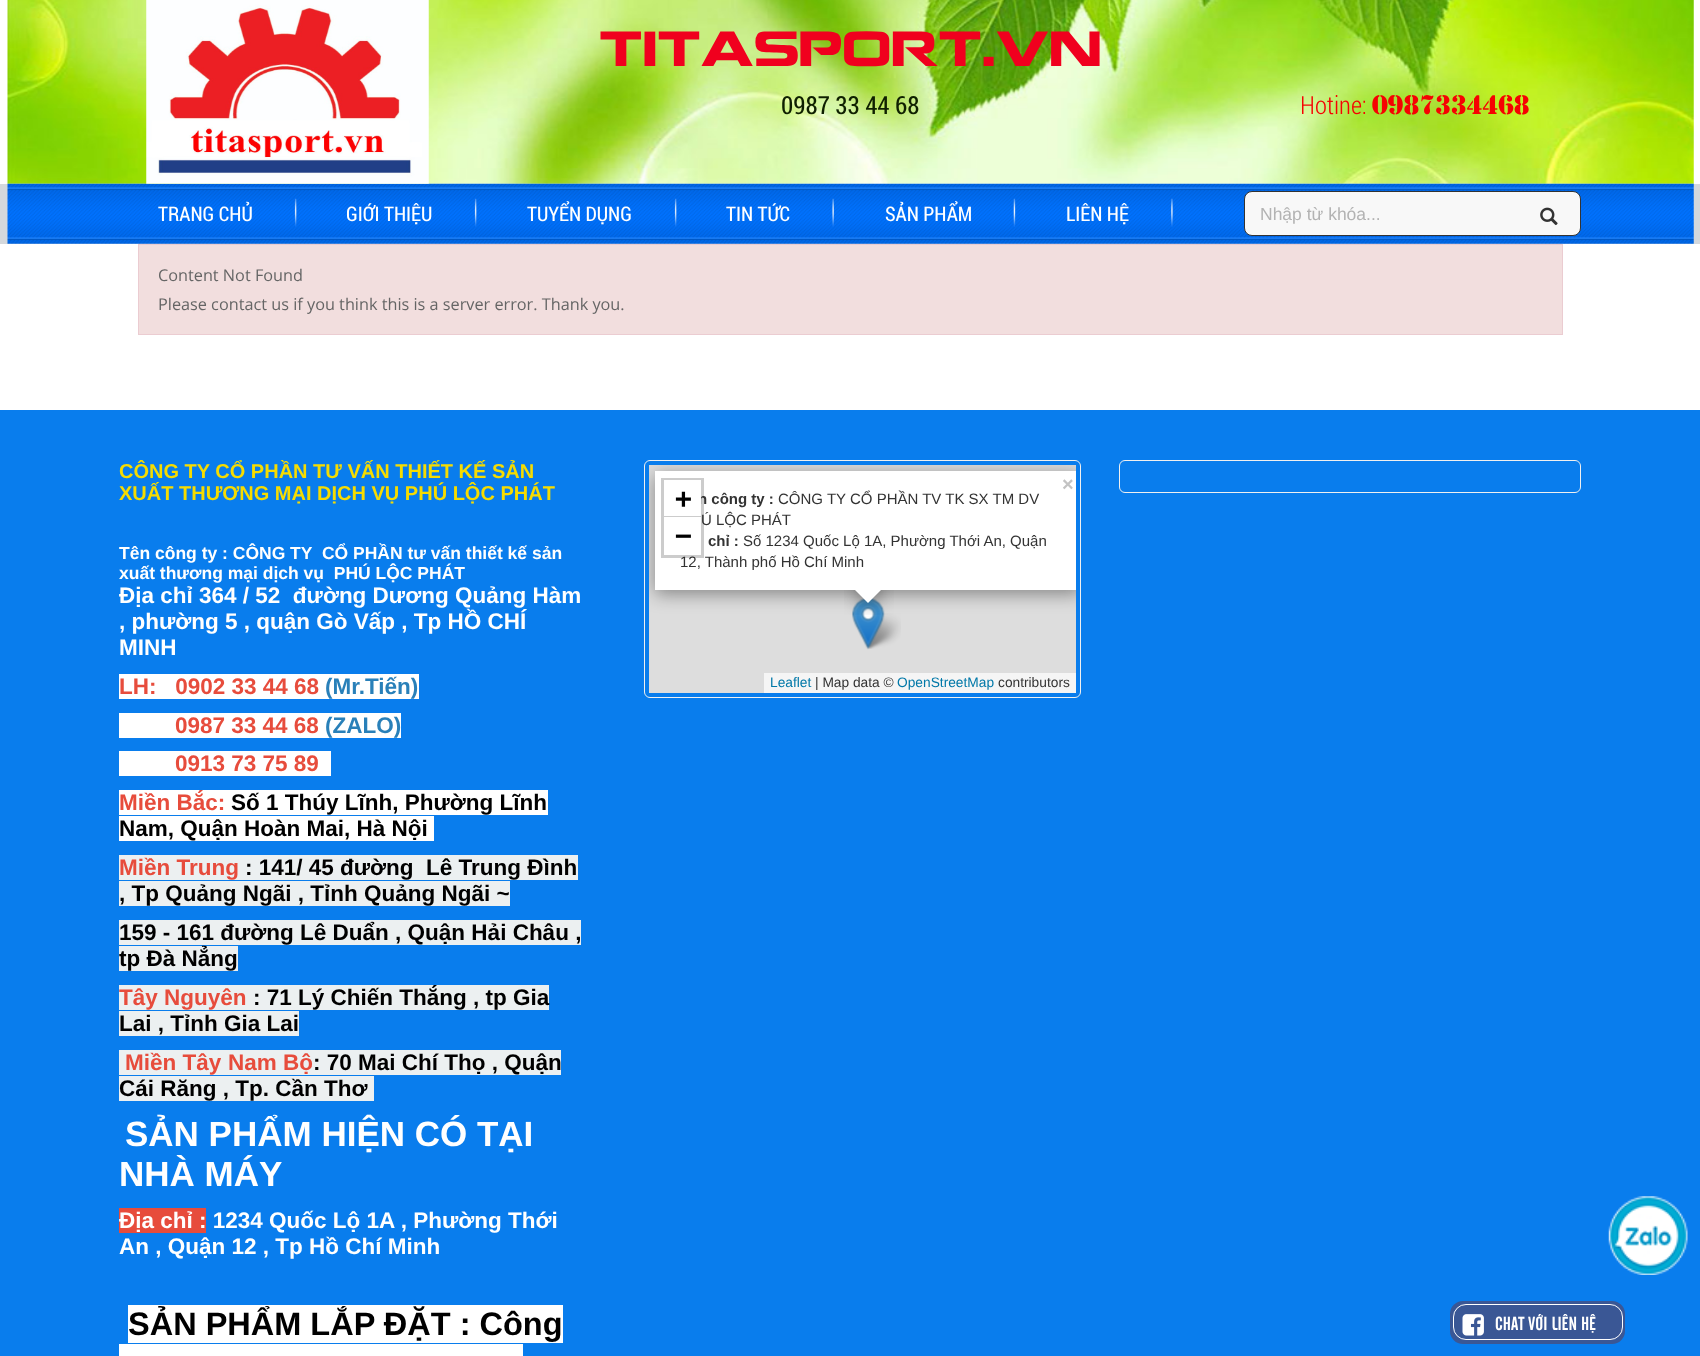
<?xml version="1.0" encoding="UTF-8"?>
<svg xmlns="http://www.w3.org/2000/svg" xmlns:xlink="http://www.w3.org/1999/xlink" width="1700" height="1356">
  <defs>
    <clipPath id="clip1"><rect x="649" y="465" width="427" height="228" /></clipPath>
    <clipPath id="clip2"><rect x="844" y="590" width="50" height="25" /></clipPath>
    <clipPath id="clip3"><rect x="844" y="590" width="50" height="25" /></clipPath>
  </defs>
  <rect width="100%" height="100%" fill="#ffffff" />
  <image x="7" y="0" width="1687" height="184" xlink:href="image1.png" />
  <rect y="184" width="1700" height="60" fill="#d4d8dc" />
  <image x="7" y="183" width="1687" height="61" xlink:href="image3.png" />
  <image x="146" y="0" width="283" height="184" xlink:href="image2.png" />
  <image x="294" y="198" width="3" height="29" xlink:href="image4.png" />
  <image x="474" y="198" width="3" height="29" xlink:href="image4.png" />
  <image x="674" y="198" width="3" height="29" xlink:href="image5.png" />
  <image x="832" y="198" width="2" height="29" xlink:href="image6.png" />
  <image x="1013" y="198" width="3" height="29" xlink:href="image7.png" />
  <image x="1171" y="198" width="2" height="29" xlink:href="image8.png" />
  <rect x="1244.5" y="191.5" width="336" height="44" rx="7.5" fill="#f8f8f8" stroke="#333333" />
  <image x="1540" y="207" width="18" height="19" xlink:href="image9.png" />
  <rect x="138.5" y="244.5" width="1424" height="90" fill="#f2dede" stroke="#ebccd1" />
  <rect y="410" width="1700" height="946" fill="#097ded" />
  <rect x="119" y="674" width="300" height="25" fill="#ffffff" />
  <rect x="119" y="713" width="282" height="25" fill="#ffffff" />
  <rect x="119" y="751" width="212" height="25" fill="#ffffff" />
  <rect x="119" y="790" width="429" height="25" fill="#ffffff" />
  <rect x="119" y="816" width="315" height="25" fill="#ffffff" />
  <rect x="119" y="855" width="459" height="25" fill="#ecf0f1" />
  <rect x="119" y="881" width="391" height="25" fill="#ecf0f1" />
  <rect x="119" y="920" width="462" height="25" fill="#ecf0f1" />
  <rect x="119" y="946" width="119" height="25" fill="#ecf0f1" />
  <rect x="119" y="985" width="430" height="25" fill="#ecf0f1" />
  <rect x="119" y="1011" width="180" height="25" fill="#ecf0f1" />
  <rect x="119" y="1050" width="102" height="25" fill="#ecf0f1" />
  <rect x="119" y="1076" width="255" height="25" fill="#ecf0f1" />
  <rect x="119" y="1208" width="87" height="25" fill="#e74c3c" />
  <rect x="128" y="1305" width="435" height="38" fill="#ffffff" />
  <rect x="119" y="1344" width="404" height="12" fill="#ffffff" />
  <rect x="644.5" y="460.5" width="436" height="237" rx="5.5" fill="none" stroke="#f0f0f0" />
  <rect x="649" y="465" width="427" height="228" fill="#dddddd" />
  <image x="864" y="613" width="37" height="36" xlink:href="image11.png" />
  <image x="852" y="598" width="33" height="52" xlink:href="image10.png" />
  <g clip-path="url(#clip1)">
    <rect x="655" y="475" width="426" height="119" fill="#000000" fill-opacity="0.4" filter="blur(9px)" />
  </g>
  <rect x="655" y="471" width="421" height="119" fill="#ffffff" />
  <g clip-path="url(#clip2)">
    <rect x="858" y="581" width="21" height="22" fill="#000000" fill-opacity="0.4" filter="blur(9px)" />
  </g>
  <g clip-path="url(#clip3)">
    <path d="M 868 573 l 15 15 l -15 15 l -15 -15 z" fill="#ffffff" />
  </g>
  <rect x="764" y="673" width="312" height="20" fill="#f5f5f5" />
  <rect x="1119.5" y="460.5" width="461" height="32" rx="5.5" fill="none" stroke="#f0f0f0" />
  <image x="1608" y="1196" width="80" height="79" xlink:href="image12.png" />
  <rect x="1451.5" y="1302.5" width="172" height="40" rx="11.5" fill="#3a5795" stroke="#3a5795" stroke-width="3" />
  <rect x="1453.5" y="1304.5" width="169" height="35" rx="12.5" fill="none" stroke="#ffffff" />
  <image x="1462" y="1314" width="22" height="22" xlink:href="image13.png" />
  <text x="599" y="66" style="font-family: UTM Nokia; font-size: 43.75px; fill: #f0001e">titasport.vn</text>
  <text x="781" y="114" style="font-family: Roboto Condensed; font-size: 25px; fill: #0f2000">0987 33 44 68</text>
  <text x="1300" y="114" style="font-family: Roboto Condensed; font-size: 25px; font-weight: 300; fill: #f60202">Hotine:</text>
  <text x="1372" y="114" style="font-family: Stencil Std; font-size: 25px; font-weight: bold; fill: #f60202">0987334468</text>
  <text x="158" y="221" style="font-family: Roboto Condensed; font-size: 20px; fill: #ffffff">TRANG CHỦ</text>
  <text x="346" y="221" style="font-family: Roboto Condensed; font-size: 20px; fill: #ffffff">GIỚI THIỆU</text>
  <text x="527" y="221" style="font-family: Roboto Condensed; font-size: 20px; fill: #ffffff">TUYỂN DỤNG</text>
  <text x="726" y="221" style="font-family: Roboto Condensed; font-size: 20px; fill: #ffffff">TIN TỨC</text>
  <text x="885" y="221" style="font-family: Roboto Condensed; font-size: 20px; fill: #ffffff">SẢN PHẨM</text>
  <text x="1066" y="221" style="font-family: Roboto Condensed; font-size: 20px; fill: #ffffff">LIÊN HỆ</text>
  <text x="1260" y="220" style="font-family: Liberation Sans; font-size: 17.5px; fill: #b3b3b3">Nhập từ khóa...</text>
  <text x="158" y="281" style="font-family: Open Sans; font-size: 16.25px; fill: #656565">Content Not Found</text>
  <text x="158" y="310" style="font-family: Open Sans; font-size: 16.25px; fill: #656565">Please contact us if you think this is a server error. Thank you.</text>
  <text x="119" y="478" style="font-family: Liberation Sans; font-size: 20px; font-weight: bold; fill: #f6dc00">CÔNG TY CỔ PHẦN TƯ VẤN THIẾT KẾ SẢN</text>
  <text x="119" y="500" style="font-family: Liberation Sans; font-size: 20px; font-weight: bold; fill: #f6dc00">XUẤT THƯƠNG MẠI DỊCH VỤ PHÚ LỘC PHÁT</text>
  <text x="119" y="559" style="font-family: Liberation Sans; font-size: 17.5px; font-weight: bold; fill: #ffffff" xml:space="preserve">Tên công ty : CÔNG TY  CỔ PHẦN tư vấn thiết kế sản</text>
  <text x="119" y="579" style="font-family: Liberation Sans; font-size: 17.5px; font-weight: bold; fill: #ffffff" xml:space="preserve">xuất thương mại dịch vụ  PHÚ LỘC PHÁT</text>
  <text x="119" y="603" style="font-family: Liberation Sans; font-size: 22.5px; font-weight: bold; fill: #ffffff" xml:space="preserve">Địa chỉ 364 / 52  đường Dương Quảng Hàm</text>
  <text x="119" y="629" style="font-family: Liberation Sans; font-size: 22.5px; font-weight: bold; fill: #ffffff">, phường 5 , quận Gò Vấp , Tp HỒ CHÍ</text>
  <text x="119" y="655" style="font-family: Liberation Sans; font-size: 22.5px; font-weight: bold; fill: #ffffff">MINH</text>
  <text x="119" y="694" style="font-family: Liberation Sans; font-size: 22.5px; font-weight: bold; fill: #e74c3c" xml:space="preserve">LH:   0902 33 44 68</text>
  <text x="325" y="694" style="font-family: Liberation Sans; font-size: 22.5px; font-weight: bold; fill: #2980b9">(Mr.Tiến)</text>
  <text x="175" y="733" style="font-family: Liberation Sans; font-size: 22.5px; font-weight: bold; fill: #e74c3c">0987 33 44 68</text>
  <text x="325" y="733" style="font-family: Liberation Sans; font-size: 22.5px; font-weight: bold; fill: #2980b9">(ZALO)</text>
  <text x="175" y="771" style="font-family: Liberation Sans; font-size: 22.5px; font-weight: bold; fill: #e74c3c">0913 73 75 89</text>
  <text x="119" y="810" style="font-family: Liberation Sans; font-size: 22.5px; font-weight: bold; fill: #e74c3c">Miền Bắc:</text>
  <text x="231" y="810" style="font-family: Liberation Sans; font-size: 22.5px; font-weight: bold; fill: #000000">Số 1 Thúy Lĩnh, Phường Lĩnh</text>
  <text x="119" y="836" style="font-family: Liberation Sans; font-size: 22.5px; font-weight: bold; fill: #000000">Nam, Quận Hoàn Mai, Hà Nội</text>
  <text x="119" y="875" style="font-family: Liberation Sans; font-size: 22.5px; font-weight: bold; fill: #e74c3c">Miền Trung</text>
  <text x="245" y="875" style="font-family: Liberation Sans; font-size: 22.5px; font-weight: bold; fill: #000000" xml:space="preserve">: 141/ 45 đường  Lê Trung Đình</text>
  <text x="119" y="901" style="font-family: Liberation Sans; font-size: 22.5px; font-weight: bold; fill: #000000">, Tp Quảng Ngãi , Tỉnh Quảng Ngãi ~</text>
  <text x="119" y="940" style="font-family: Liberation Sans; font-size: 22.5px; font-weight: bold; fill: #000000">159 - 161 đường Lê Duẩn , Quận Hải Châu ,</text>
  <text x="119" y="966" style="font-family: Liberation Sans; font-size: 22.5px; font-weight: bold; fill: #000000">tp Đà Nẳng</text>
  <text x="119" y="1005" style="font-family: Liberation Sans; font-size: 22.5px; font-weight: bold; fill: #e74c3c">Tây Nguyên</text>
  <text x="253" y="1005" style="font-family: Liberation Sans; font-size: 22.5px; font-weight: bold; fill: #000000">: 71 Lý Chiến Thắng , tp Gia</text>
  <text x="119" y="1031" style="font-family: Liberation Sans; font-size: 22.5px; font-weight: bold; fill: #000000">Lai , Tỉnh Gia Lai</text>
  <text x="125" y="1070" style="font-family: Liberation Sans; font-size: 22.5px; font-weight: bold; fill: #e74c3c">Miền Tây</text>
  <rect x="221" y="1050" width="340" height="25" fill="#ecf0f1" />
  <text x="228" y="1070" style="font-family: Liberation Sans; font-size: 22.5px; font-weight: bold; fill: #e74c3c">Nam Bộ</text>
  <text x="313" y="1070" style="font-family: Liberation Sans; font-size: 22.5px; font-weight: bold; fill: #000000">: 70 Mai Chí Thọ , Quận</text>
  <text x="119" y="1096" style="font-family: Liberation Sans; font-size: 22.5px; font-weight: bold; fill: #000000">Cái Răng , Tp. Cần Thơ</text>
  <text x="125" y="1146" style="font-family: Liberation Sans; font-size: 35px; font-weight: bold; fill: #ffffff">SẢN PHẨM HIỆN CÓ TẠI</text>
  <text x="119" y="1186" style="font-family: Liberation Sans; font-size: 35px; font-weight: bold; fill: #ffffff">NHÀ MÁY</text>
  <text x="119" y="1228" style="font-family: Liberation Sans; font-size: 22.5px; font-weight: bold; fill: #ffffff">Địa chỉ : 1234 Quốc Lộ 1A , Phường Thới</text>
  <text x="119" y="1254" style="font-family: Liberation Sans; font-size: 22.5px; font-weight: bold; fill: #ffffff">An , Quận 12 , Tp Hồ Chí Minh</text>
  <text x="128" y="1335" style="font-family: Liberation Sans; font-size: 32.5px; font-weight: bold; fill: #000000">SẢN PHẨM LẮP ĐẶT : Công</text>
  <text x="1062" y="491" style="font-family: Liberation Sans; font-size: 20px; font-weight: bold; fill: #c3c3c3">×</text>
  <text x="698" y="504" style="font-family: Liberation Sans; font-size: 15px; font-weight: bold; fill: #333333">n công ty :</text>
  <text x="778" y="504" style="font-family: Liberation Sans; font-size: 15px; fill: #333333">CÔNG TY CỔ PHẦN TV TK SX TM DV</text>
  <text x="701" y="525" style="font-family: Liberation Sans; font-size: 15px; fill: #333333">Ú LỘC PHÁT</text>
  <text x="708" y="546" style="font-family: Liberation Sans; font-size: 15px; font-weight: bold; fill: #333333">chỉ :</text>
  <text x="743" y="546" style="font-family: Liberation Sans; font-size: 15px; fill: #333333">Số 1234 Quốc Lộ 1A, Phường Thới An, Quận</text>
  <text x="680" y="567" style="font-family: Liberation Sans; font-size: 15px; fill: #333333">12, Thành phố Hồ Chí Minh</text>
  <rect x="662.5" y="479.5" width="40" height="77" fill="none" stroke="#000000" stroke-opacity="0.2" stroke-width="3" />
  <rect x="664" y="480" width="37" height="24" fill="#ffffff" />
  <rect x="664" y="516" width="37" height="1" fill="#cccccc" />
  <text x="675" y="508" style="font-family: DejaVu Sans Mono; font-size: 28px; font-weight: bold; fill: #000000">+</text>
  <text x="675" y="545" style="font-family: DejaVu Sans Mono; font-size: 28px; font-weight: bold; fill: #000000">−</text>
  <text x="770" y="687" style="font-family: Liberation Sans; font-size: 13.75px; fill: #0078a8">Leaflet</text>
  <text x="815" y="687" style="font-family: Liberation Sans; font-size: 13.75px; fill: #333333">| Map data ©</text>
  <text x="897" y="687" style="font-family: Liberation Sans; font-size: 13.75px; fill: #0078a8">OpenStreetMap</text>
  <text x="998" y="687" style="font-family: Liberation Sans; font-size: 13.75px; fill: #333333">contributors</text>
  <text x="1495" y="1330" style="font-family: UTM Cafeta; font-size: 18.75px; fill: #ffffff">CHAT VỚI LIÊN HỆ</text>
</svg>
